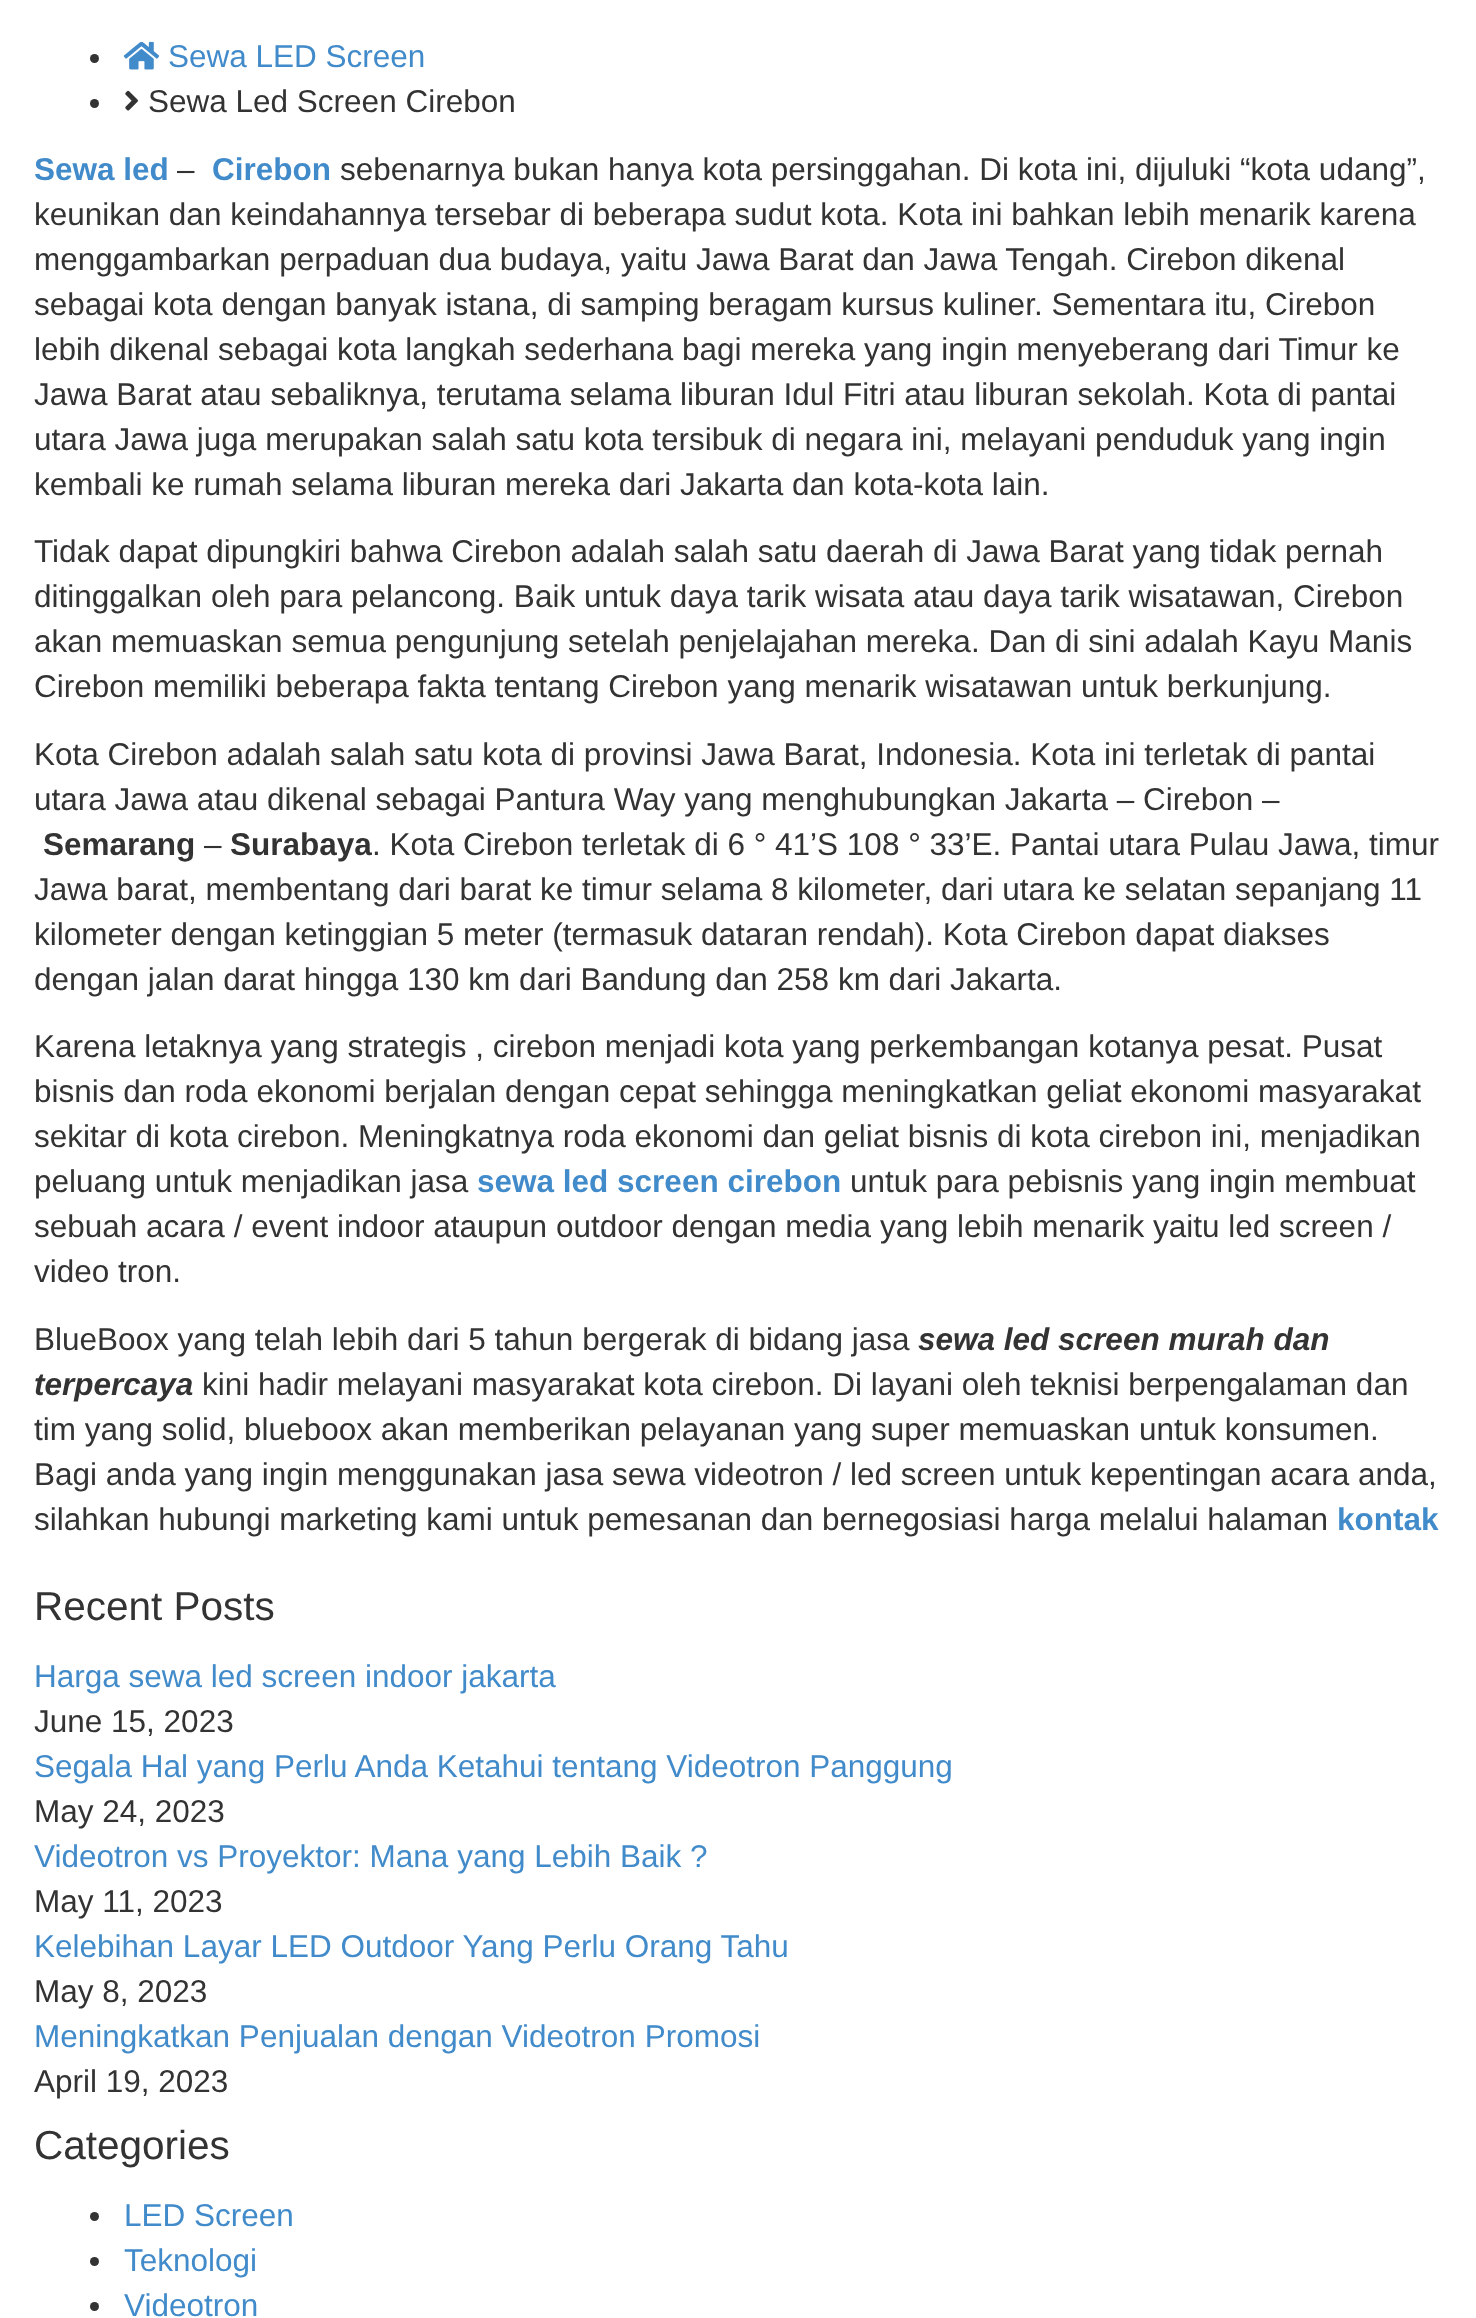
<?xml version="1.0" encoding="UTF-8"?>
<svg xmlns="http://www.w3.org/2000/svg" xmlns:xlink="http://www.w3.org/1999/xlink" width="1476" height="2318">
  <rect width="100%" height="100%" fill="#ffffff" />
  <circle cx="94.5" cy="58.5" r="4.5" fill="#333333" />
  <image x="123" y="41" width="37" height="29" xlink:href="image1.png" />
  <circle cx="94.5" cy="103.5" r="4.5" fill="#333333" />
  <image x="125" y="90" width="13" height="21" xlink:href="image2.png" />
  <circle cx="94.5" cy="2216.5" r="4.5" fill="#333333" />
  <circle cx="94.5" cy="2261.5" r="4.5" fill="#333333" />
  <circle cx="94.5" cy="2306.5" r="4.5" fill="#333333" />
  <text x="168" y="67" style="font-family: Liberation Sans; font-size: 31.5px; fill: #428bca">Sewa LED Screen</text>
  <text x="148" y="112" style="font-family: Liberation Sans; font-size: 31.5px; fill: #333333">Sewa Led Screen Cirebon</text>
  <text x="34" y="180" style="font-family: Liberation Sans; font-size: 31.5px; font-weight: bold; fill: #428bca">Sewa led</text>
  <text x="177" y="180" style="font-family: Liberation Sans; font-size: 31.5px; fill: #333333">–</text>
  <text x="212" y="180" style="font-family: Liberation Sans; font-size: 31.5px; font-weight: bold; fill: #428bca">Cirebon</text>
  <text x="340" y="180" style="font-family: Liberation Sans; font-size: 31.5px; fill: #333333">sebenarnya bukan hanya kota persinggahan. Di kota ini, dijuluki “kota udang”,</text>
  <text x="34" y="225" style="font-family: Liberation Sans; font-size: 31.5px; fill: #333333">keunikan dan keindahannya tersebar di beberapa sudut kota. Kota ini bahkan lebih menarik karena</text>
  <text x="34" y="270" style="font-family: Liberation Sans; font-size: 31.5px; fill: #333333">menggambarkan perpaduan dua budaya, yaitu Jawa Barat dan Jawa Tengah. Cirebon dikenal</text>
  <text x="34" y="315" style="font-family: Liberation Sans; font-size: 31.5px; fill: #333333">sebagai kota dengan banyak istana, di samping beragam kursus kuliner. Sementara itu, Cirebon</text>
  <text x="34" y="360" style="font-family: Liberation Sans; font-size: 31.5px; fill: #333333">lebih dikenal sebagai kota langkah sederhana bagi mereka yang ingin menyeberang dari Timur ke</text>
  <text x="34" y="405" style="font-family: Liberation Sans; font-size: 31.5px; fill: #333333">Jawa Barat atau sebaliknya, terutama selama liburan Idul Fitri atau liburan sekolah. Kota di pantai</text>
  <text x="34" y="450" style="font-family: Liberation Sans; font-size: 31.5px; fill: #333333">utara Jawa juga merupakan salah satu kota tersibuk di negara ini, melayani penduduk yang ingin</text>
  <text x="34" y="495" style="font-family: Liberation Sans; font-size: 31.5px; fill: #333333">kembali ke rumah selama liburan mereka dari Jakarta dan kota-kota lain.</text>
  <text x="34" y="562" style="font-family: Liberation Sans; font-size: 31.5px; fill: #333333">Tidak dapat dipungkiri bahwa Cirebon adalah salah satu daerah di Jawa Barat yang tidak pernah</text>
  <text x="34" y="607" style="font-family: Liberation Sans; font-size: 31.5px; fill: #333333">ditinggalkan oleh para pelancong. Baik untuk daya tarik wisata atau daya tarik wisatawan, Cirebon</text>
  <text x="34" y="652" style="font-family: Liberation Sans; font-size: 31.5px; fill: #333333">akan memuaskan semua pengunjung setelah penjelajahan mereka. Dan di sini adalah Kayu Manis</text>
  <text x="34" y="697" style="font-family: Liberation Sans; font-size: 31.5px; fill: #333333">Cirebon memiliki beberapa fakta tentang Cirebon yang menarik wisatawan untuk berkunjung.</text>
  <text x="34" y="765" style="font-family: Liberation Sans; font-size: 31.5px; fill: #333333">Kota Cirebon adalah salah satu kota di provinsi Jawa Barat, Indonesia. Kota ini terletak di pantai</text>
  <text x="34" y="810" style="font-family: Liberation Sans; font-size: 31.5px; fill: #333333">utara Jawa atau dikenal sebagai Pantura Way yang menghubungkan Jakarta – Cirebon –</text>
  <text x="43" y="855" style="font-family: Liberation Sans; font-size: 31.5px; font-weight: bold; fill: #333333">Semarang</text>
  <text x="204" y="855" style="font-family: Liberation Sans; font-size: 31.5px; fill: #333333">–</text>
  <text x="230" y="855" style="font-family: Liberation Sans; font-size: 31.5px; font-weight: bold; fill: #333333">Surabaya</text>
  <text x="372" y="855" style="font-family: Liberation Sans; font-size: 31.5px; fill: #333333">. Kota Cirebon terletak di 6 ° 41’S 108 ° 33’E. Pantai utara Pulau Jawa, timur</text>
  <text x="34" y="900" style="font-family: Liberation Sans; font-size: 31.5px; fill: #333333">Jawa barat, membentang dari barat ke timur selama 8 kilometer, dari utara ke selatan sepanjang 11</text>
  <text x="34" y="945" style="font-family: Liberation Sans; font-size: 31.5px; fill: #333333">kilometer dengan ketinggian 5 meter (termasuk dataran rendah). Kota Cirebon dapat diakses</text>
  <text x="34" y="990" style="font-family: Liberation Sans; font-size: 31.5px; fill: #333333">dengan jalan darat hingga 130 km dari Bandung dan 258 km dari Jakarta.</text>
  <text x="34" y="1057" style="font-family: Liberation Sans; font-size: 31.5px; fill: #333333">Karena letaknya yang strategis , cirebon menjadi kota yang perkembangan kotanya pesat. Pusat</text>
  <text x="34" y="1102" style="font-family: Liberation Sans; font-size: 31.5px; fill: #333333">bisnis dan roda ekonomi berjalan dengan cepat sehingga meningkatkan geliat ekonomi masyarakat</text>
  <text x="34" y="1147" style="font-family: Liberation Sans; font-size: 31.5px; fill: #333333">sekitar di kota cirebon. Meningkatnya roda ekonomi dan geliat bisnis di kota cirebon ini, menjadikan</text>
  <text x="34" y="1192" style="font-family: Liberation Sans; font-size: 31.5px; fill: #333333">peluang untuk menjadikan jasa</text>
  <text x="477" y="1192" style="font-family: Liberation Sans; font-size: 31.5px; font-weight: bold; fill: #428bca">sewa led screen cirebon</text>
  <text x="850" y="1192" style="font-family: Liberation Sans; font-size: 31.5px; fill: #333333">untuk para pebisnis yang ingin membuat</text>
  <text x="34" y="1237" style="font-family: Liberation Sans; font-size: 31.5px; fill: #333333">sebuah acara / event indoor ataupun outdoor dengan media yang lebih menarik yaitu led screen /</text>
  <text x="34" y="1282" style="font-family: Liberation Sans; font-size: 31.5px; fill: #333333">video tron.</text>
  <text x="34" y="1350" style="font-family: Liberation Sans; font-size: 31.5px; fill: #333333">BlueBoox yang telah lebih dari 5 tahun bergerak di bidang jasa</text>
  <text x="918" y="1350" style="font-family: Liberation Sans; font-size: 31.5px; font-weight: bold; font-style: italic; fill: #333333">sewa led screen murah dan</text>
  <text x="34" y="1395" style="font-family: Liberation Sans; font-size: 31.5px; font-weight: bold; font-style: italic; fill: #333333">terpercaya</text>
  <text x="202" y="1395" style="font-family: Liberation Sans; font-size: 31.5px; fill: #333333">kini hadir melayani masyarakat kota cirebon. Di layani oleh teknisi berpengalaman dan</text>
  <text x="34" y="1440" style="font-family: Liberation Sans; font-size: 31.5px; fill: #333333">tim yang solid, blueboox akan memberikan pelayanan yang super memuaskan untuk konsumen.</text>
  <text x="34" y="1485" style="font-family: Liberation Sans; font-size: 31.5px; fill: #333333">Bagi anda yang ingin menggunakan jasa sewa videotron / led screen untuk kepentingan acara anda,</text>
  <text x="34" y="1530" style="font-family: Liberation Sans; font-size: 31.5px; fill: #333333">silahkan hubungi marketing kami untuk pemesanan dan bernegosiasi harga melalui halaman</text>
  <text x="1337" y="1530" style="font-family: Liberation Sans; font-size: 31.5px; font-weight: bold; fill: #428bca">kontak</text>
  <text x="34" y="1620" style="font-family: Liberation Sans; font-size: 40.5px; fill: #333333">Recent Posts</text>
  <text x="34" y="1687" style="font-family: Liberation Sans; font-size: 31.5px; fill: #428bca">Harga sewa led screen indoor jakarta</text>
  <text x="34" y="1732" style="font-family: Liberation Sans; font-size: 31.5px; fill: #333333">June 15, 2023</text>
  <text x="34" y="1777" style="font-family: Liberation Sans; font-size: 31.5px; fill: #428bca">Segala Hal yang Perlu Anda Ketahui tentang Videotron Panggung</text>
  <text x="34" y="1822" style="font-family: Liberation Sans; font-size: 31.5px; fill: #333333">May 24, 2023</text>
  <text x="34" y="1867" style="font-family: Liberation Sans; font-size: 31.5px; fill: #428bca">Videotron vs Proyektor: Mana yang Lebih Baik ?</text>
  <text x="34" y="1912" style="font-family: Liberation Sans; font-size: 31.5px; fill: #333333">May 11, 2023</text>
  <text x="34" y="1957" style="font-family: Liberation Sans; font-size: 31.5px; fill: #428bca">Kelebihan Layar LED Outdoor Yang Perlu Orang Tahu</text>
  <text x="34" y="2002" style="font-family: Liberation Sans; font-size: 31.5px; fill: #333333">May 8, 2023</text>
  <text x="34" y="2047" style="font-family: Liberation Sans; font-size: 31.5px; fill: #428bca">Meningkatkan Penjualan dengan Videotron Promosi</text>
  <text x="34" y="2092" style="font-family: Liberation Sans; font-size: 31.5px; fill: #333333">April 19, 2023</text>
  <text x="34" y="2159" style="font-family: Liberation Sans; font-size: 40.5px; fill: #333333">Categories</text>
  <text x="124" y="2226" style="font-family: Liberation Sans; font-size: 31.5px; fill: #428bca">LED Screen</text>
  <text x="124" y="2271" style="font-family: Liberation Sans; font-size: 31.5px; fill: #428bca">Teknologi</text>
  <text x="124" y="2316" style="font-family: Liberation Sans; font-size: 31.5px; fill: #428bca">Videotron</text>
</svg>
